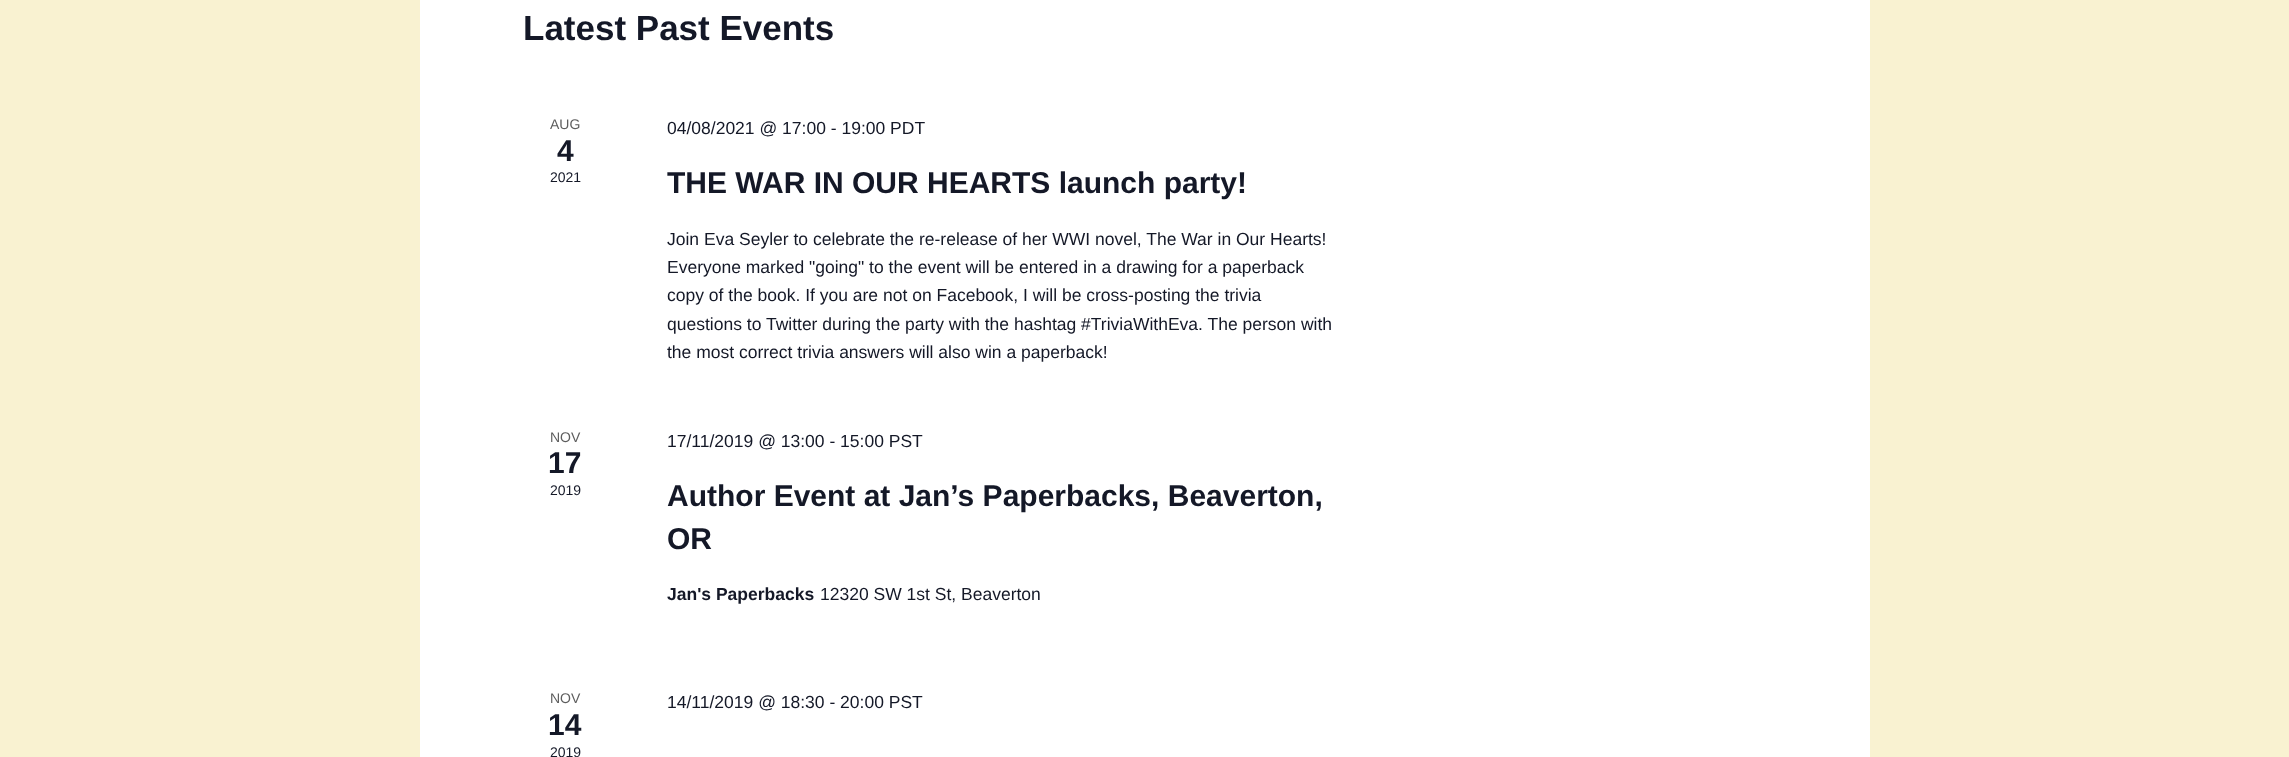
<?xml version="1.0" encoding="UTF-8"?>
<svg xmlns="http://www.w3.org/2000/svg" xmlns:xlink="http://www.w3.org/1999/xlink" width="2289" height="757">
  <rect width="100%" height="100%" fill="#f9f2d1" />
  <rect x="420" width="1450" height="757" fill="#ffffff" />
  <text x="523" y="40" style="font-family: Liberation Sans; font-size: 35px; font-weight: bold; fill: #141827">Latest Past Events</text>
  <text x="550" y="129" style="font-family: Liberation Sans; font-size: 14px; fill: #5d5d5d">AUG</text>
  <text x="557" y="161" style="font-family: Liberation Sans; font-size: 30px; font-weight: bold; fill: #141827">4</text>
  <text x="550" y="182" style="font-family: Liberation Sans; font-size: 14px; fill: #141827">2021</text>
  <text x="667" y="134" style="font-family: Liberation Sans; font-size: 17.5px; fill: #141827">04/08/2021 @ 17:00 - 19:00 PDT</text>
  <text x="667" y="193" style="font-family: Liberation Sans; font-size: 30px; font-weight: bold; fill: #141827">THE WAR IN OUR HEARTS launch party!</text>
  <text x="667" y="245" style="font-family: Liberation Sans; font-size: 17.5px; fill: #141827">Join Eva Seyler to celebrate the re-release of her WWI novel, The War in Our Hearts!</text>
  <text x="667" y="273" style="font-family: Liberation Sans; font-size: 17.5px; fill: #141827">Everyone marked "going" to the event will be entered in a drawing for a paperback</text>
  <text x="667" y="301" style="font-family: Liberation Sans; font-size: 17.5px; fill: #141827">copy of the book. If you are not on Facebook, I will be cross-posting the trivia</text>
  <text x="667" y="330" style="font-family: Liberation Sans; font-size: 17.5px; fill: #141827">questions to Twitter during the party with the hashtag #TriviaWithEva. The person with</text>
  <text x="667" y="358" style="font-family: Liberation Sans; font-size: 17.5px; fill: #141827">the most correct trivia answers will also win a paperback!</text>
  <text x="550" y="442" style="font-family: Liberation Sans; font-size: 14px; fill: #5d5d5d">NOV</text>
  <text x="548" y="473" style="font-family: Liberation Sans; font-size: 30px; font-weight: bold; fill: #141827">17</text>
  <text x="550" y="495" style="font-family: Liberation Sans; font-size: 14px; fill: #141827">2019</text>
  <text x="667" y="447" style="font-family: Liberation Sans; font-size: 17.5px; fill: #141827">17/11/2019 @ 13:00 - 15:00 PST</text>
  <text x="667" y="506" style="font-family: Liberation Sans; font-size: 30px; font-weight: bold; fill: #141827">Author Event at Jan’s Paperbacks, Beaverton,</text>
  <text x="667" y="549" style="font-family: Liberation Sans; font-size: 30px; font-weight: bold; fill: #141827">OR</text>
  <text x="667" y="600" style="font-family: Liberation Sans; font-size: 17.5px; font-weight: bold; fill: #141827">Jan's Paperbacks</text>
  <text x="820" y="600" style="font-family: Liberation Sans; font-size: 17.5px; fill: #141827">12320 SW 1st St, Beaverton</text>
  <text x="550" y="703" style="font-family: Liberation Sans; font-size: 14px; fill: #5d5d5d">NOV</text>
  <text x="548" y="735" style="font-family: Liberation Sans; font-size: 30px; font-weight: bold; fill: #141827">14</text>
  <text x="550" y="757" style="font-family: Liberation Sans; font-size: 14px; fill: #141827">2019</text>
  <text x="667" y="708" style="font-family: Liberation Sans; font-size: 17.5px; fill: #141827">14/11/2019 @ 18:30 - 20:00 PST</text>
</svg>
